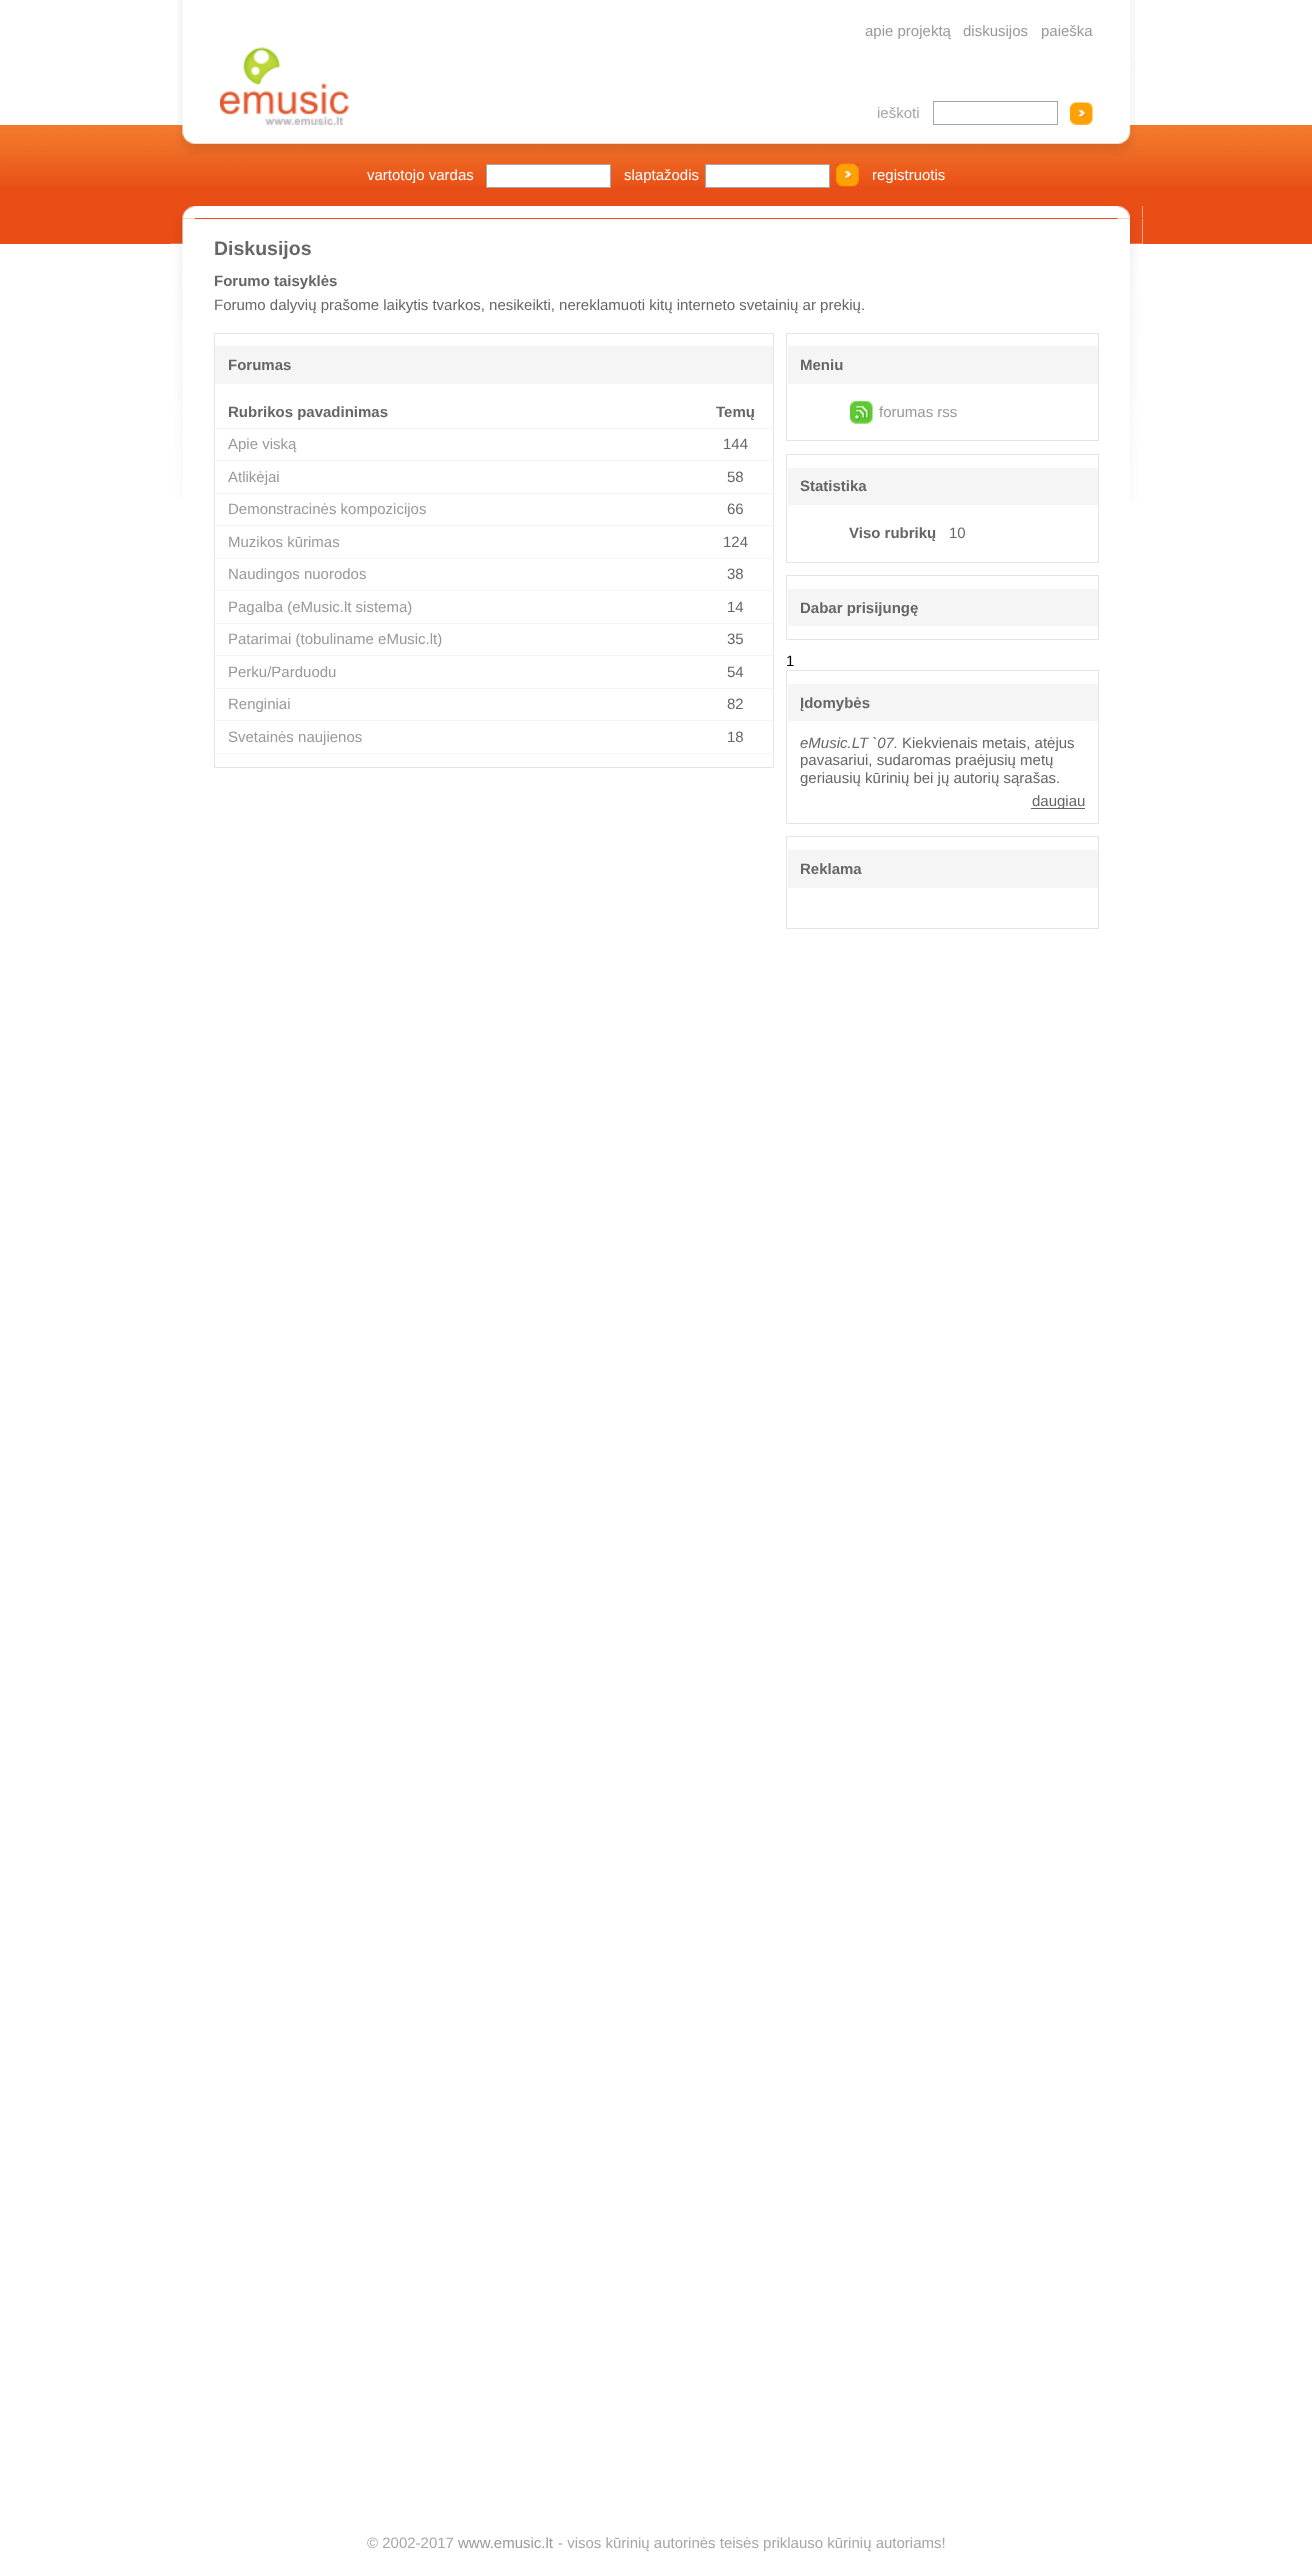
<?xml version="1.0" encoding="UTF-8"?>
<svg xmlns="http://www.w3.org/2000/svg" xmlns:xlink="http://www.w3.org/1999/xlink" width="1312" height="2573">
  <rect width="100%" height="100%" fill="#ffffff" />
  <image x="177" y="0" width="6" height="125" xlink:href="image1.png" />
  <rect x="1130" width="5" height="125" fill="#f7f7f7" />
  <rect x="1135" y="62" width="1" height="3" fill="#fafafa" />
  <image x="220" y="47" width="129" height="78" xlink:href="image2.png" />
  <rect x="933.5" y="101.5" width="124" height="23" fill="none" stroke="#a6a6a6" />
  <image x="1070" y="102" width="23" height="23" xlink:href="image3.png" />
  <rect y="186" width="1312" height="58" fill="#e94e16" />
  <image x="0" y="125" width="1312" height="61" xlink:href="image4.png" />
  <image x="176" y="125" width="960" height="31" xlink:href="image5.png" />
  <rect x="486.5" y="164.5" width="124" height="23" fill="#ffffff" stroke="#a6a6a6" />
  <rect x="705.5" y="164.5" width="124" height="23" fill="#ffffff" stroke="#a6a6a6" />
  <image x="836" y="163" width="23" height="24" xlink:href="image6.png" />
  <rect x="195" y="206" width="948" height="12" fill="#ffffff" />
  <image x="170" y="206" width="25" height="13" xlink:href="image7.png" />
  <image x="1117" y="206" width="26" height="13" xlink:href="image8.png" />
  <rect x="170" y="219" width="973" height="25" fill="#ffffff" />
  <image x="170" y="218" width="13" height="282" xlink:href="image9.png" />
  <rect x="214.5" y="333.5" width="559" height="434" fill="none" stroke="#e5e5e5" />
  <rect x="215" y="346" width="558" height="38" fill="#f5f5f5" />
  <rect x="215" y="428" width="558" height="1" fill="#f5f5f5" />
  <rect x="215" y="460" width="558" height="1" fill="#f5f5f5" />
  <rect x="215" y="493" width="558" height="1" fill="#f5f5f5" />
  <rect x="215" y="525" width="558" height="1" fill="#f5f5f5" />
  <rect x="215" y="558" width="558" height="1" fill="#f5f5f5" />
  <rect x="215" y="590" width="558" height="1" fill="#f5f5f5" />
  <rect x="215" y="623" width="558" height="1" fill="#f5f5f5" />
  <rect x="215" y="655" width="558" height="1" fill="#f5f5f5" />
  <rect x="215" y="688" width="558" height="1" fill="#f5f5f5" />
  <rect x="215" y="720" width="558" height="1" fill="#f5f5f5" />
  <rect x="215" y="753" width="558" height="1" fill="#f5f5f5" />
  <rect x="786.5" y="333.5" width="312" height="107" fill="none" stroke="#e5e5e5" />
  <rect x="788" y="346" width="310" height="38" fill="#f5f5f5" />
  <image x="850" y="401" width="23" height="23" xlink:href="image10.png" />
  <rect x="786.5" y="454.5" width="312" height="108" fill="none" stroke="#e5e5e5" />
  <rect x="788" y="468" width="310" height="37" fill="#f5f5f5" />
  <rect x="786.5" y="575.5" width="312" height="64" fill="none" stroke="#e5e5e5" />
  <rect x="788" y="589" width="310" height="37" fill="#f5f5f5" />
  <rect x="786.5" y="670.5" width="312" height="153" fill="none" stroke="#e5e5e5" />
  <rect x="788" y="684" width="310" height="37" fill="#f5f5f5" />
  <rect x="1031" y="808" width="54" height="1" fill="#666666" />
  <rect x="786.5" y="836.5" width="312" height="92" fill="none" stroke="#e5e5e5" />
  <rect x="788" y="850" width="310" height="38" fill="#f5f5f5" />
  <image x="1130" y="218" width="13" height="283" xlink:href="image11.png" />
  <text x="865" y="36" style="font-family: Liberation Sans; font-size: 15px; fill: #999999">apie projektą</text>
  <text x="963" y="36" style="font-family: Liberation Sans; font-size: 15px; fill: #999999">diskusijos</text>
  <text x="1041" y="36" style="font-family: Liberation Sans; font-size: 15px; fill: #999999">paieška</text>
  <text x="877" y="118" style="font-family: Liberation Sans; font-size: 15px; fill: #a6a6a6">ieškoti</text>
  <text x="367" y="180" style="font-family: Liberation Sans; font-size: 15px; fill: #ffffff">vartotojo vardas</text>
  <text x="624" y="180" style="font-family: Liberation Sans; font-size: 15px; fill: #ffffff">slaptažodis</text>
  <text x="872" y="180" style="font-family: Liberation Sans; font-size: 15px; fill: #ffffff">registruotis</text>
  <text x="214" y="255" style="font-family: Liberation Sans; font-size: 19.5px; font-weight: bold; fill: #666666">Diskusijos</text>
  <text x="214" y="286" style="font-family: Liberation Sans; font-size: 15px; font-weight: bold; fill: #666666">Forumo taisyklės</text>
  <text x="214" y="310" style="font-family: Liberation Sans; font-size: 15px; fill: #666666">Forumo dalyvių prašome laikytis tvarkos, nesikeikti, nereklamuoti kitų interneto svetainių ar prekių.</text>
  <text x="228" y="370" style="font-family: Liberation Sans; font-size: 15px; font-weight: bold; fill: #666666">Forumas</text>
  <text x="228" y="417" style="font-family: Liberation Sans; font-size: 15px; font-weight: bold; fill: #666666">Rubrikos pavadinimas</text>
  <text x="716" y="417" style="font-family: Liberation Sans; font-size: 15px; font-weight: bold; fill: #666666">Temų</text>
  <text x="228" y="449" style="font-family: Liberation Sans; font-size: 15px; fill: #999999">Apie viską</text>
  <text x="723" y="449" style="font-family: Liberation Sans; font-size: 15px; fill: #666666">144</text>
  <text x="228" y="482" style="font-family: Liberation Sans; font-size: 15px; fill: #999999">Atlikėjai</text>
  <text x="727" y="482" style="font-family: Liberation Sans; font-size: 15px; fill: #666666">58</text>
  <text x="228" y="514" style="font-family: Liberation Sans; font-size: 15px; fill: #999999">Demonstracinės kompozicijos</text>
  <text x="727" y="514" style="font-family: Liberation Sans; font-size: 15px; fill: #666666">66</text>
  <text x="228" y="547" style="font-family: Liberation Sans; font-size: 15px; fill: #999999">Muzikos kūrimas</text>
  <text x="723" y="547" style="font-family: Liberation Sans; font-size: 15px; fill: #666666">124</text>
  <text x="228" y="579" style="font-family: Liberation Sans; font-size: 15px; fill: #999999">Naudingos nuorodos</text>
  <text x="727" y="579" style="font-family: Liberation Sans; font-size: 15px; fill: #666666">38</text>
  <text x="228" y="612" style="font-family: Liberation Sans; font-size: 15px; fill: #999999">Pagalba (eMusic.lt sistema)</text>
  <text x="727" y="612" style="font-family: Liberation Sans; font-size: 15px; fill: #666666">14</text>
  <text x="228" y="644" style="font-family: Liberation Sans; font-size: 15px; fill: #999999">Patarimai (tobuliname eMusic.lt)</text>
  <text x="727" y="644" style="font-family: Liberation Sans; font-size: 15px; fill: #666666">35</text>
  <text x="228" y="677" style="font-family: Liberation Sans; font-size: 15px; fill: #999999">Perku/Parduodu</text>
  <text x="727" y="677" style="font-family: Liberation Sans; font-size: 15px; fill: #666666">54</text>
  <text x="228" y="709" style="font-family: Liberation Sans; font-size: 15px; fill: #999999">Renginiai</text>
  <text x="727" y="709" style="font-family: Liberation Sans; font-size: 15px; fill: #666666">82</text>
  <text x="228" y="742" style="font-family: Liberation Sans; font-size: 15px; fill: #999999">Svetainės naujienos</text>
  <text x="727" y="742" style="font-family: Liberation Sans; font-size: 15px; fill: #666666">18</text>
  <text x="800" y="370" style="font-family: Liberation Sans; font-size: 15px; font-weight: bold; fill: #666666">Meniu</text>
  <text x="879" y="417" style="font-family: Liberation Sans; font-size: 15px; fill: #999999">forumas rss</text>
  <text x="800" y="491" style="font-family: Liberation Sans; font-size: 15px; font-weight: bold; fill: #666666">Statistika</text>
  <text x="849" y="538" style="font-family: Liberation Sans; font-size: 15px; font-weight: bold; fill: #666666">Viso rubrikų</text>
  <text x="949" y="538" style="font-family: Liberation Sans; font-size: 15px; fill: #666666">10</text>
  <text x="800" y="613" style="font-family: Liberation Sans; font-size: 15px; font-weight: bold; fill: #666666">Dabar prisijungę</text>
  <text x="786" y="666" style="font-family: Liberation Sans; font-size: 15px; fill: #000000">1</text>
  <text x="800" y="708" style="font-family: Liberation Sans; font-size: 15px; font-weight: bold; fill: #666666">Įdomybės</text>
  <text x="800" y="748" style="font-family: Liberation Sans; font-size: 15px; font-style: italic; fill: #666666">eMusic.LT `07.</text>
  <text x="902" y="748" style="font-family: Liberation Sans; font-size: 15px; fill: #666666">Kiekvienais metais, atėjus</text>
  <text x="800" y="765" style="font-family: Liberation Sans; font-size: 15px; fill: #666666">pavasariui, sudaromas praėjusių metų</text>
  <text x="800" y="783" style="font-family: Liberation Sans; font-size: 15px; fill: #666666">geriausių kūrinių bei jų autorių sąrašas.</text>
  <text x="1032" y="806" style="font-family: Liberation Sans; font-size: 15px; fill: #666666">daugiau</text>
  <text x="800" y="874" style="font-family: Liberation Sans; font-size: 15px; font-weight: bold; fill: #666666">Reklama</text>
  <text x="367" y="2548" style="font-family: Liberation Sans; font-size: 15px; fill: #a6a6a6">© 2002-2017</text>
  <text x="458" y="2548" style="font-family: Liberation Sans; font-size: 15px; fill: #999999">www.emusic.lt</text>
  <text x="558" y="2548" style="font-family: Liberation Sans; font-size: 15px; fill: #a6a6a6">- visos kūrinių autorinės teisės priklauso kūrinių autoriams!</text>
</svg>
